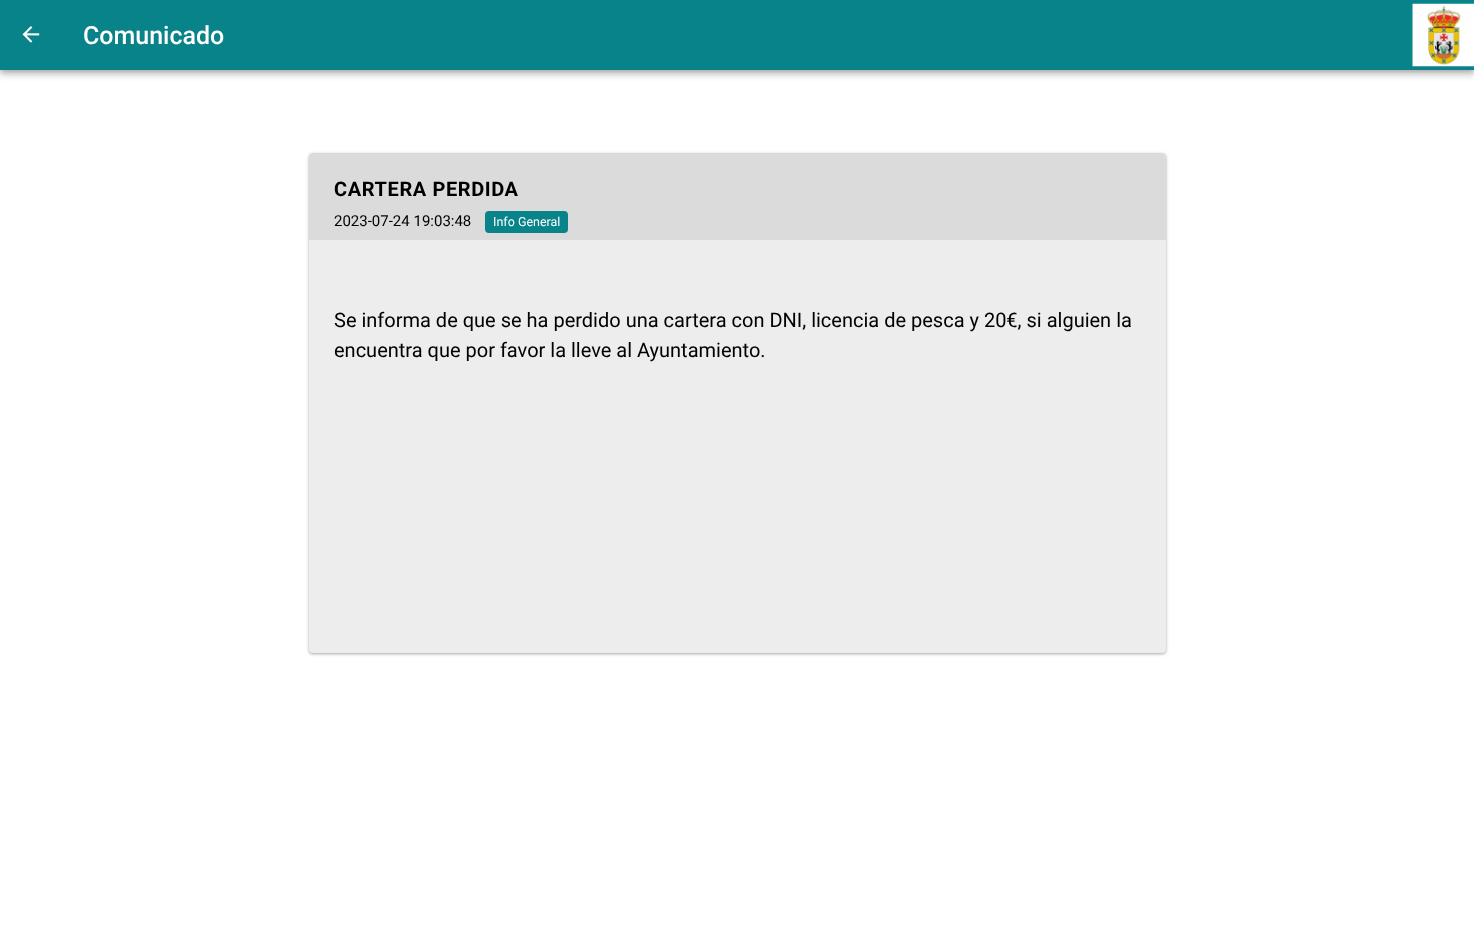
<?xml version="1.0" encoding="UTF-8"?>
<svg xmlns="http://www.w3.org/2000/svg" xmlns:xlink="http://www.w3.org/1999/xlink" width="1474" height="952">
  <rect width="100%" height="100%" fill="#ffffff" />
  <rect y="1" width="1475" height="70" fill="#000000" fill-opacity="0.12" filter="blur(6px)" />
  <rect y="5" width="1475" height="70" fill="#000000" fill-opacity="0.14" filter="blur(3px)" />
  <rect x="1" y="4" width="1473" height="67" fill="#000000" fill-opacity="0.2" filter="blur(2.5px)" />
  <rect width="1474" height="70" fill="#088389" />
  <image x="22" y="26" width="18" height="17" xlink:href="image1.png" />
  <image x="1412" y="3" width="62" height="64" xlink:href="image2.png" />
  <rect x="309" y="154" width="857" height="500" rx="4" fill="#000000" fill-opacity="0.24" filter="blur(1px)" />
  <rect x="309" y="154" width="857" height="500" rx="4" fill="#000000" fill-opacity="0.12" filter="blur(2px)" />
  <rect x="309" y="153" width="857" height="500" rx="4" fill="#ededed" />
  <path d="M 313 153 h 849 c 2 0 4 2 4 4 v 83 h -857 v -83 c 0 -2 2 -4 4 -4 z" fill="#dbdbdb" />
  <rect x="485" y="211" width="83" height="22" rx="4" fill="#088389" />
  <text x="83" y="44" style="font-family: Roboto; font-size: 25px; font-weight: 500; fill: #ffffff">Comunicado</text>
  <text x="334" y="196" style="font-family: Roboto; font-size: 20px; font-weight: bold; letter-spacing: 0.6px; fill: #000000">CARTERA PERDIDA</text>
  <text x="334" y="226" style="font-family: Roboto; font-size: 15px; fill: #000000">2023-07-24 19:03:48</text>
  <text x="493" y="226" style="font-family: Roboto; font-size: 12.5px; fill: #ffffff">Info General</text>
  <text x="334" y="327" style="font-family: Roboto; font-size: 20px; fill: #000000">Se informa de que se ha perdido una cartera con DNI, licencia de pesca y 20€, si alguien la</text>
  <text x="334" y="357" style="font-family: Roboto; font-size: 20px; fill: #000000">encuentra que por favor la lleve al Ayuntamiento.</text>
</svg>
